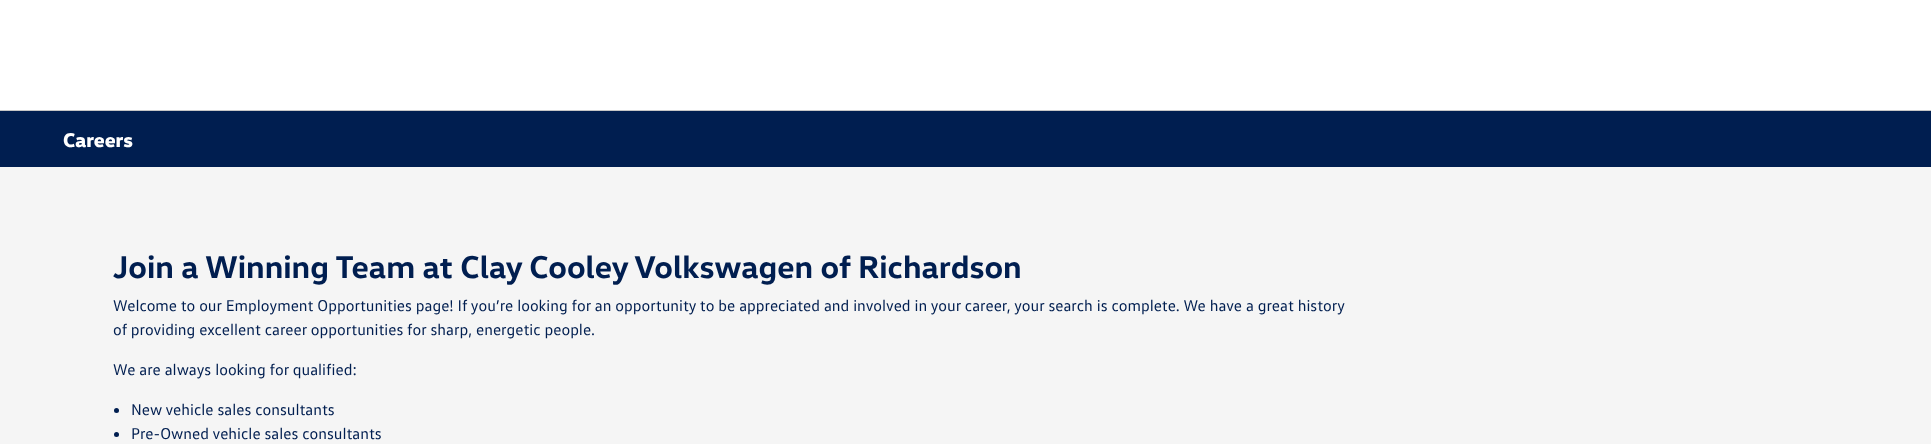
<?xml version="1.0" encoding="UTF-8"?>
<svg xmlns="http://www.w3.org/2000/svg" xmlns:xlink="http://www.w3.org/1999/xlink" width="1931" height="444">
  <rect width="100%" height="100%" fill="#ffffff" />
  <rect y="167" width="1931" height="277" fill="#f5f5f5" />
  <rect y="111" width="1931" height="56" fill="#001e50" />
  <rect y="110" width="1931" height="1" fill="#c6c6c6" />
  <circle cx="116.5" cy="410.5" r="2.5" fill="#001e50" />
  <circle cx="116.5" cy="434.5" r="2.5" fill="#001e50" />
  <text x="63" y="147" style="font-family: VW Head; font-size: 20px; font-weight: 800; fill: #ffffff">Careers</text>
  <text x="113" y="278" style="font-family: VW Head; font-size: 32px; font-weight: bold; fill: #001e50">Join a Winning Team at Clay Cooley Volkswagen of Richardson</text>
  <text x="113" y="311" style="font-family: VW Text; font-size: 16px; fill: #001e50">Welcome to our Employment Opportunities page! If you’re looking for an opportunity to be appreciated and involved in your career, your search is complete. We have a great history</text>
  <text x="113" y="335" style="font-family: VW Text; font-size: 16px; fill: #001e50">of providing excellent career opportunities for sharp, energetic people.</text>
  <text x="113" y="375" style="font-family: VW Text; font-size: 16px; fill: #001e50">We are always looking for qualified:</text>
  <text x="131" y="415" style="font-family: VW Text; font-size: 16px; fill: #001e50">New vehicle sales consultants</text>
  <text x="131" y="439" style="font-family: VW Text; font-size: 16px; fill: #001e50">Pre-Owned vehicle sales consultants</text>
</svg>
